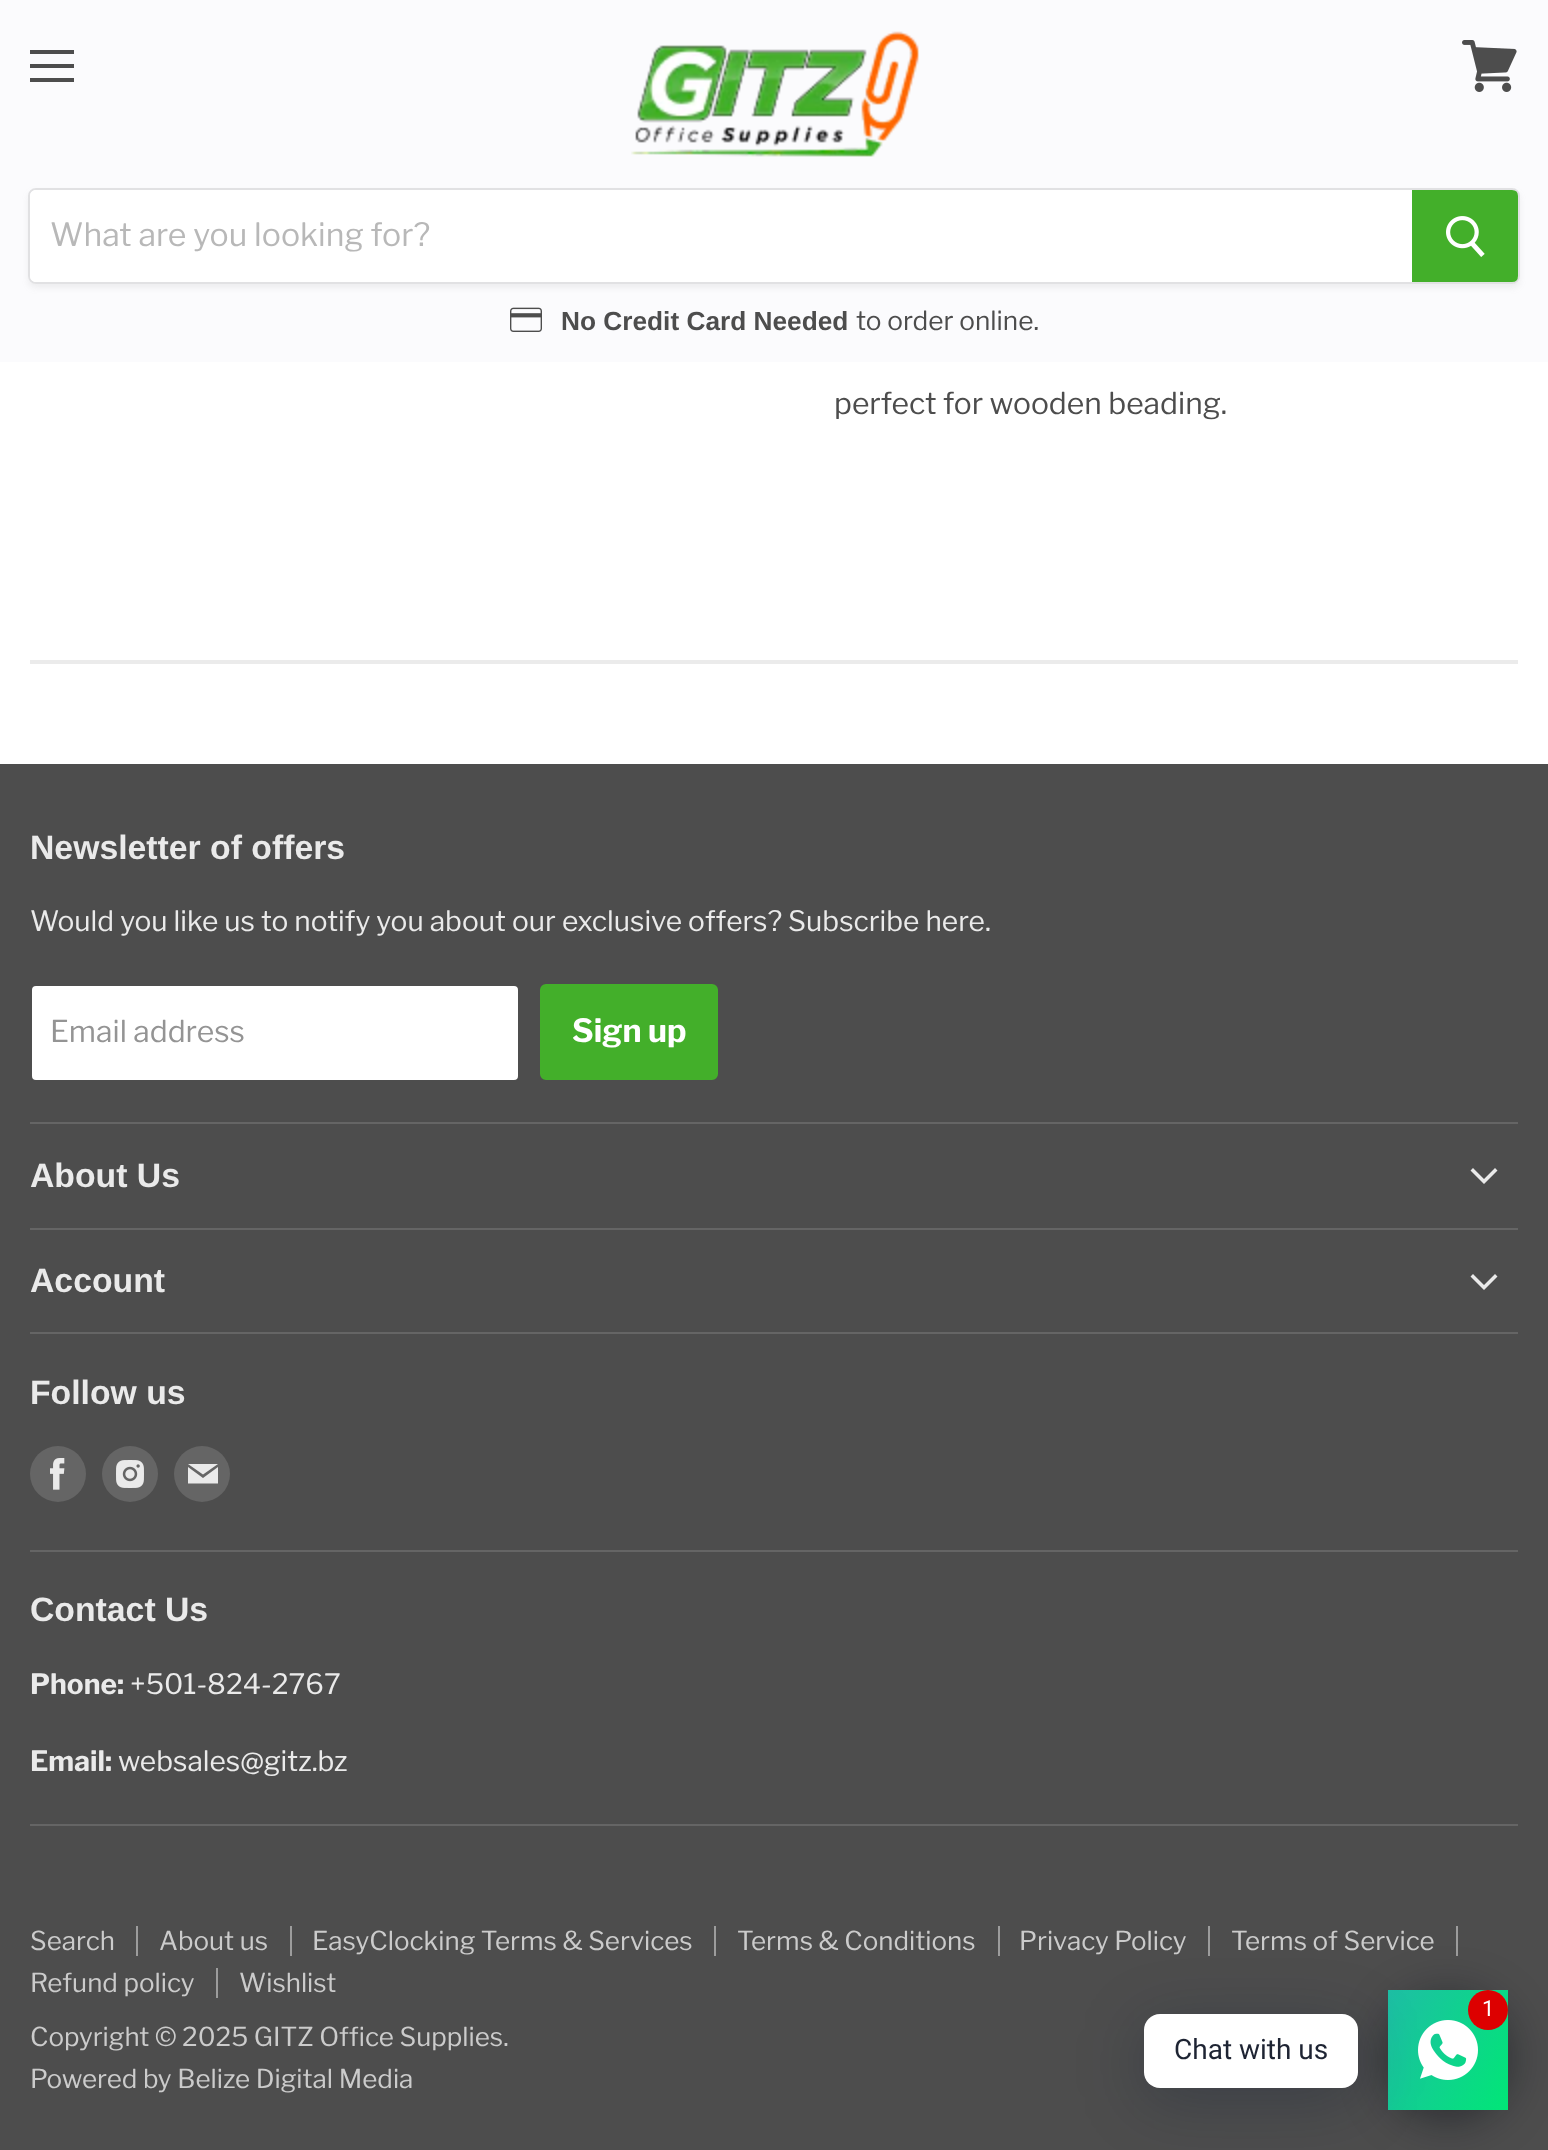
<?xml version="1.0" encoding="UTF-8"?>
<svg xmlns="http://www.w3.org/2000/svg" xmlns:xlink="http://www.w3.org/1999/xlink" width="1548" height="2150">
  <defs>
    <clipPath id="clip1"><path d="M 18 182 h 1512 v 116 h -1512 z m 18 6 h 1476 c 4.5 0 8 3.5 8 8 v 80 c 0 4.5 -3.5 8 -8 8 h -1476 c -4.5 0 -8 -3.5 -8 -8 v -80 c 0 -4.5 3.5 -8 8 -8 z" clip-rule="evenodd" /></clipPath>
    <linearGradient id="g1" gradientUnits="userSpaceOnUse" x1="1376" y1="2016" x2="1520" y2="2084"><stop offset="0" stop-color="#1ebea5" /><stop offset="1" stop-color="#01e677" /></linearGradient>
  </defs>
  <rect width="100%" height="100%" fill="#ffffff" />
  <rect width="1548" height="362" fill="#fbfbfd" />
  <rect x="30" y="50" width="44" height="4" fill="#4d4d4d" />
  <rect x="30" y="64" width="44" height="4" fill="#4d4d4d" />
  <rect x="30" y="78" width="44" height="4" fill="#4d4d4d" />
  <image x="1462" y="40" width="55" height="52" xlink:href="image1.png" />
  <image x="631" y="31" width="288" height="126" xlink:href="image2.png" />
  <g clip-path="url(#clip1)">
    <rect x="28" y="192" width="1492" height="96" rx="8" fill="#7f7f7f" fill-opacity="0.11" filter="blur(3px)" />
  </g>
  <rect x="29" y="189" width="1490" height="94" rx="7" fill="none" stroke="#7f7f7f" stroke-opacity="0.2" stroke-width="2" />
  <path d="M 36 190 h 1376 v 92 h -1376 c -3.5 0 -6 -2.5 -6 -6 v -80 c 0 -3.5 2.5 -6 6 -6 z" fill="#ffffff" />
  <path d="M 1413 191 h 99 c 3 0 5 2 5 5 v 80 c 0 3 -2 5 -5 5 h -99 z" fill="#43af2a" stroke="#43af2a" stroke-width="2" />
  <image x="1446" y="216" width="39" height="41" xlink:href="image3.png" />
  <image x="510" y="307" width="32" height="25" xlink:href="image4.png" />
  <rect x="30" y="660" width="1488" height="4" fill="#ebebeb" />
  <rect y="764" width="1548" height="1386" fill="#4d4d4d" />
  <rect x="30" y="1122" width="1488" height="2" fill="#656565" />
  <rect x="31" y="985" width="488" height="96" rx="5" fill="#ffffff" stroke="#4d4d4d" stroke-width="2" />
  <rect x="541" y="985" width="176" height="94" rx="5" fill="#43af2a" stroke="#43af2a" stroke-width="2" />
  <rect x="30" y="1228" width="1488" height="2" fill="#656565" />
  <path d="M 1484 1184 l 13.5 -13.5 l -2.5 -2.5 l -11 11 z m 0 -5 l -11 -11 l -2.5 2.5 l 13.5 13.5 z" fill="#eaeaea" fill-rule="evenodd" />
  <rect x="30" y="1332" width="1488" height="2" fill="#656565" />
  <path d="M 1484 1290 l 13.5 -13.5 l -2.5 -2.5 l -11 11 z m 0 -5 l -11 -11 l -2.5 2.5 l 13.5 13.5 z" fill="#eaeaea" fill-rule="evenodd" />
  <rect x="30" y="1550" width="1488" height="2" fill="#656565" />
  <circle cx="58" cy="1474" r="28" fill="#656565" />
  <image x="50" y="1458" width="15" height="32" xlink:href="image5.png" />
  <circle cx="130" cy="1474" r="28" fill="#656565" />
  <image x="116" y="1460" width="28" height="28" xlink:href="image6.png" />
  <circle cx="202" cy="1474" r="28" fill="#656565" />
  <path d="M 218 1464 h -30 l 15 10.5 z m -15 14 l -15 -11 v 16.5 h 30 v -16.5 z" fill="#eaeaea" fill-rule="evenodd" />
  <rect x="30" y="1824" width="1488" height="2" fill="#656565" />
  <rect x="136" y="1926" width="2" height="30" fill="#9c9c9c" />
  <rect x="290" y="1926" width="2" height="30" fill="#9c9c9c" />
  <rect x="714" y="1926" width="2" height="30" fill="#9c9c9c" />
  <rect x="998" y="1926" width="2" height="30" fill="#9c9c9c" />
  <rect x="1208" y="1926" width="2" height="30" fill="#9c9c9c" />
  <rect x="1456" y="1926" width="2" height="30" fill="#9c9c9c" />
  <rect x="216" y="1968" width="2" height="30" fill="#9c9c9c" />
  <rect x="1388" y="1998" width="120" height="120" rx="60" fill="#020610" fill-opacity="0.5" filter="blur(24px)" />
  <rect x="1388" y="1990" width="120" height="120" fill="url(#g1)" />
  <rect x="1144" y="2026" width="214" height="74" rx="16" fill="#00122e" fill-opacity="0.24" filter="blur(32px)" />
  <image x="1418" y="2020" width="60" height="60" xlink:href="image7.png" />
  <circle cx="1488" cy="2010" r="20" fill="#dd0000" />
  <rect x="1144" y="2014" width="214" height="74" rx="16" fill="#ffffff" />
  <text x="50" y="246" style="font-family: Libre Franklin; font-size: 32px; fill: #b8b8b8">What are you looking for?</text>
  <text x="561" y="330" style="font-family: Arimo; font-size: 26.25px; font-weight: bold; fill: #4d4d4d">No Credit Card Needed</text>
  <text x="856" y="330" style="font-family: Libre Franklin; font-size: 26.25px; fill: #4d4d4d">to order online.</text>
  <text x="834" y="414" style="font-family: Libre Franklin; font-size: 30px; fill: #4d4d4d">perfect for wooden beading.</text>
  <text x="30" y="859" style="font-family: Arimo; font-size: 33.75px; font-weight: bold; fill: #eaeaea">Newsletter of offers</text>
  <text x="30" y="931" style="font-family: Libre Franklin; font-size: 28.1px; fill: #eaeaea">Would you like us to notify you about our</text>
  <text x="562" y="931" style="font-family: Libre Franklin; font-size: 28.1px; fill: #eaeaea">exclusive offers? Subscribe here.</text>
  <text x="50" y="1042" style="font-family: Libre Franklin; font-size: 30px; fill: #949494">Email address</text>
  <text x="572" y="1042" style="font-family: Libre Franklin; font-size: 32px; font-weight: bold; fill: #ffffff">Sign up</text>
  <text x="30" y="1187" style="font-family: Arimo; font-size: 33.75px; font-weight: bold; fill: #eaeaea">About Us</text>
  <text x="30" y="1292" style="font-family: Arimo; font-size: 33.75px; font-weight: bold; fill: #eaeaea">Account</text>
  <text x="30" y="1404" style="font-family: Arimo; font-size: 33.75px; font-weight: bold; fill: #eaeaea">Follow us</text>
  <text x="30" y="1621" style="font-family: Arimo; font-size: 33.75px; font-weight: bold; fill: #eaeaea">Contact Us</text>
  <text x="30" y="1694" style="font-family: Libre Franklin; font-size: 28.1px; font-weight: bold; fill: #eaeaea">Phone:</text>
  <text x="130" y="1694" style="font-family: Libre Franklin; font-size: 28.1px; fill: #eaeaea">+501-824-2767</text>
  <text x="30" y="1771" style="font-family: Libre Franklin; font-size: 28.1px; font-weight: bold; fill: #eaeaea">Email:</text>
  <text x="118" y="1771" style="font-family: Libre Franklin; font-size: 28.1px; fill: #eaeaea">websales@gitz.bz</text>
  <text x="30" y="1950" style="font-family: Libre Franklin; font-size: 26px; fill: #cbcbcb">Search</text>
  <text x="159" y="1950" style="font-family: Libre Franklin; font-size: 26px; fill: #cbcbcb">About us</text>
  <text x="312" y="1950" style="font-family: Libre Franklin; font-size: 26px; fill: #cbcbcb">EasyClocking Terms &amp; Services</text>
  <text x="737" y="1950" style="font-family: Libre Franklin; font-size: 26px; fill: #cbcbcb">Terms &amp; Conditions</text>
  <text x="1019" y="1950" style="font-family: Libre Franklin; font-size: 26px; fill: #cbcbcb">Privacy Policy</text>
  <text x="1231" y="1950" style="font-family: Libre Franklin; font-size: 26px; fill: #cbcbcb">Terms of Service</text>
  <text x="30" y="1992" style="font-family: Libre Franklin; font-size: 26px; fill: #cbcbcb">Refund policy</text>
  <text x="239" y="1992" style="font-family: Libre Franklin; font-size: 26px; fill: #cbcbcb">Wishlist</text>
  <text x="30" y="2046" style="font-family: Libre Franklin; font-size: 26px; fill: #cbcbcb">Copyright © 2025 GITZ Office Supplies.</text>
  <text x="30" y="2088" style="font-family: Libre Franklin; font-size: 26px; fill: #cbcbcb">Powered by Belize Digital Media</text>
  <text x="1482" y="2016" style="font-family: Roboto; font-size: 22px; fill: #ffffff">1</text>
  <text x="1174" y="2059" style="font-family: Roboto; font-size: 28px; fill: #1e2433">Chat with us</text>
</svg>
